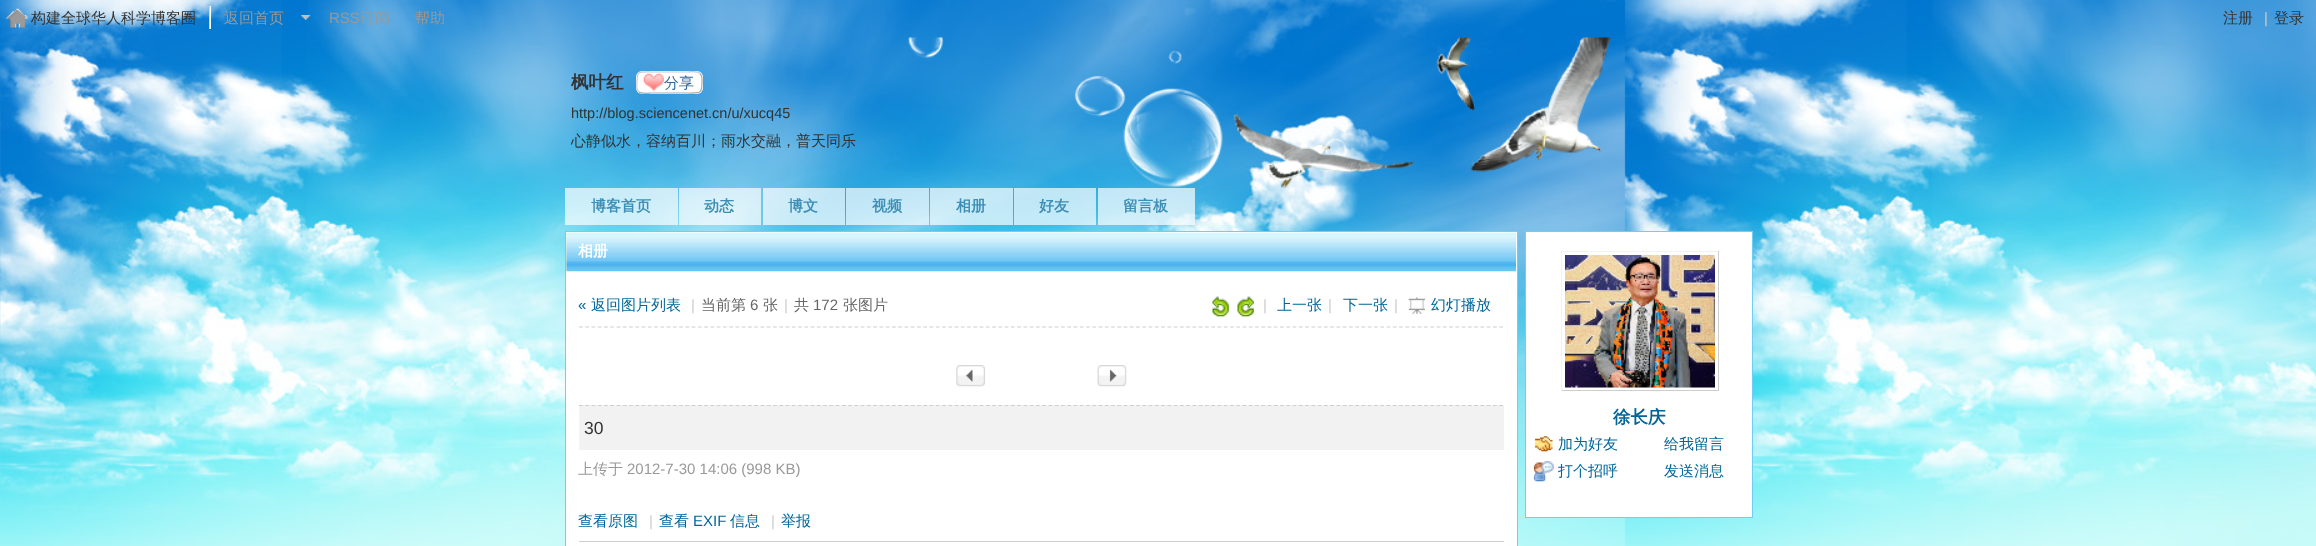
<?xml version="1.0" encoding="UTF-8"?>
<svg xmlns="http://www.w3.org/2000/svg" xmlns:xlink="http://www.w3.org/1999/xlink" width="2316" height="546">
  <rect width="100%" height="100%" fill="#ffffff" />
  <image x="0" y="0" width="2316" height="546" xlink:href="image1.png" />
  <image x="6" y="8" width="22" height="20" xlink:href="image2.png" />
  <rect x="210" y="6" width="1" height="23" fill="#ffffff" />
  <rect x="209" y="6" width="1" height="23" fill="#d5d5d5" />
  <image x="301" y="15" width="10" height="5" xlink:href="image3.png" />
  <image x="908" y="37" width="703" height="151" xlink:href="image4.png" />
  <rect x="636" y="71" width="67" height="23" rx="6" fill="#ffffff" />
  <image x="643" y="73" width="21" height="19" xlink:href="image5.png" />
  <path d="M 700 73.5 c 2.5 2.5 2 6 2 9 c 0 12 -2.5 10.5 -14.5 10.5 h -36 c -3 0 -10 1.5 -13 -1.5" fill="none" stroke="#a9a9a9" stroke-width="1.2" />
  <path d="M 638.5 91.5 c -2.5 -2.5 -1.5 -6 -1.5 -9 c 0 -12 2 -10.5 14.5 -10.5 h 36 c 2.5 0 9.5 -1.5 12.5 1.5" fill="none" stroke="#cccccc" stroke-width="1.2" />
  <rect x="565" y="188" width="113" height="37" fill="#ffffff" fill-opacity="0.7" />
  <rect x="679" y="188" width="82" height="37" fill="#ffffff" fill-opacity="0.7" />
  <rect x="763" y="188" width="82" height="37" fill="#ffffff" fill-opacity="0.7" />
  <rect x="846" y="188" width="83" height="37" fill="#ffffff" fill-opacity="0.7" />
  <rect x="930" y="188" width="83" height="37" fill="#ffffff" fill-opacity="0.7" />
  <rect x="1014" y="188" width="82" height="37" fill="#ffffff" fill-opacity="0.7" />
  <rect x="1098" y="188" width="97" height="37" fill="#ffffff" fill-opacity="0.7" />
  <rect x="565.5" y="231.5" width="952" height="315" fill="#ffffff" stroke="#71cef3" />
  <rect x="566" y="233" width="1" height="38" fill="#feebca" />
  <image x="566" y="232" width="951" height="40" xlink:href="image6.png" />
  <path d="M 579 327 h 925" fill="none" stroke="#cdcdcd" stroke-width="1.2" stroke-dasharray="3.75 2.51" />
  <image x="1212" y="296" width="17" height="21" xlink:href="image7.png" />
  <image x="1237" y="296" width="17" height="21" xlink:href="image8.png" />
  <image x="1408" y="297" width="17" height="17" xlink:href="image9.png" />
  <image x="956" y="365" width="29" height="22" xlink:href="image10.png" />
  <image x="1097" y="365" width="30" height="22" xlink:href="image11.png" />
  <rect x="579" y="541" width="925" height="1" fill="#cdcdcd" />
  <rect x="579" y="405" width="925" height="45" fill="#f2f2f2" />
  <path d="M 579 405.5 h 925" fill="none" stroke="#cdcdcd" stroke-width="1.2" stroke-dasharray="3.75 2.51" />
  <rect x="1525.5" y="231.5" width="227" height="286" fill="#ffffff" stroke="#71cef3" />
  <rect x="1561" y="251" width="158" height="1" fill="#f2f2f2" />
  <rect x="1718" y="251" width="1" height="140" fill="#cdcdcd" />
  <rect x="1561" y="390" width="158" height="1" fill="#cdcdcd" />
  <rect x="1561" y="251" width="1" height="140" fill="#f2f2f2" />
  <image x="1565" y="255" width="150" height="133" xlink:href="image12.png" />
  <image x="1534" y="436" width="19" height="16" xlink:href="image13.png" />
  <image x="1533" y="461" width="21" height="21" xlink:href="image14.png" />
  <text x="31" y="23" style="font-family: WenQuanYi Zen Hei; font-size: 15px; font-weight: 500; fill: #333333">构建全球华人科学博客圈</text>
  <text x="224" y="23" style="font-family: WenQuanYi Zen Hei; font-size: 15px; font-weight: 500; fill: #999999">返回首页</text>
  <text x="329" y="23" style="font-family: Liberation Sans; font-size: 15px; fill: #999999">RSS</text>
  <text x="360" y="23" style="font-family: WenQuanYi Zen Hei; font-size: 15px; font-weight: 500; fill: #999999">订阅</text>
  <text x="415" y="23" style="font-family: WenQuanYi Zen Hei; font-size: 15px; font-weight: 500; fill: #999999">帮助</text>
  <text x="2223" y="23" style="font-family: WenQuanYi Zen Hei; font-size: 15px; font-weight: 500; fill: #333333">注册</text>
  <text x="2264" y="23" style="font-family: Liberation Sans; font-size: 15px; fill: #cccccc">|</text>
  <text x="2274" y="23" style="font-family: WenQuanYi Zen Hei; font-size: 15px; font-weight: 500; fill: #333333">登录</text>
  <text x="571" y="88" style="font-family: WenQuanYi Zen Hei; font-size: 17.5px; font-weight: bold; fill: #333333">枫叶红</text>
  <text x="664" y="88" style="font-family: WenQuanYi Zen Hei; font-size: 15px; font-weight: 500; fill: #336699">分享</text>
  <text x="571" y="118" style="font-family: Liberation Sans; font-size: 14.5px; fill: #333333">http://blog.sciencenet.cn/u/xucq45</text>
  <text x="571" y="146" style="font-family: WenQuanYi Zen Hei; font-size: 15px; font-weight: 500; fill: #333333">心静似水，容纳百川；雨水交融，普天同乐</text>
  <text x="591" y="211" style="font-family: WenQuanYi Zen Hei; font-size: 15px; font-weight: bold; fill: #3d8fb6">博客首页</text>
  <text x="704" y="211" style="font-family: WenQuanYi Zen Hei; font-size: 15px; font-weight: bold; fill: #3d8fb6">动态</text>
  <text x="788" y="211" style="font-family: WenQuanYi Zen Hei; font-size: 15px; font-weight: bold; fill: #3d8fb6">博文</text>
  <text x="872" y="211" style="font-family: WenQuanYi Zen Hei; font-size: 15px; font-weight: bold; fill: #3d8fb6">视频</text>
  <text x="956" y="211" style="font-family: WenQuanYi Zen Hei; font-size: 15px; font-weight: bold; fill: #3d8fb6">相册</text>
  <text x="1039" y="211" style="font-family: WenQuanYi Zen Hei; font-size: 15px; font-weight: bold; fill: #3d8fb6">好友</text>
  <text x="1123" y="211" style="font-family: WenQuanYi Zen Hei; font-size: 15px; font-weight: bold; fill: #3d8fb6">留言板</text>
  <text x="578" y="256" style="font-family: WenQuanYi Zen Hei; font-size: 15px; font-weight: bold; fill: #ffffff">相册</text>
  <text x="578" y="310" style="font-family: Liberation Sans; font-size: 15px; fill: #006699">«</text>
  <text x="591" y="310" style="font-family: WenQuanYi Zen Hei; font-size: 15px; font-weight: 500; fill: #006699">返回图片列表</text>
  <text x="691" y="310" style="font-family: Liberation Sans; font-size: 15px; fill: #cccccc">|</text>
  <text x="701" y="310" style="font-family: WenQuanYi Zen Hei; font-size: 15px; font-weight: 500; fill: #666666">当前第</text>
  <text x="750" y="310" style="font-family: Liberation Sans; font-size: 15px; fill: #666666">6</text>
  <text x="763" y="310" style="font-family: WenQuanYi Zen Hei; font-size: 15px; font-weight: 500; fill: #666666">张</text>
  <text x="784" y="310" style="font-family: Liberation Sans; font-size: 15px; fill: #cccccc">|</text>
  <text x="794" y="310" style="font-family: WenQuanYi Zen Hei; font-size: 15px; font-weight: 500; fill: #666666">共</text>
  <text x="813" y="310" style="font-family: Liberation Sans; font-size: 15px; fill: #666666">172</text>
  <text x="843" y="310" style="font-family: WenQuanYi Zen Hei; font-size: 15px; font-weight: 500; fill: #666666">张图片</text>
  <text x="1263" y="310" style="font-family: Liberation Sans; font-size: 15px; fill: #cccccc">|</text>
  <text x="1277" y="310" style="font-family: WenQuanYi Zen Hei; font-size: 15px; font-weight: 500; fill: #006699">上一张</text>
  <text x="1328" y="310" style="font-family: Liberation Sans; font-size: 15px; fill: #cccccc">|</text>
  <text x="1343" y="310" style="font-family: WenQuanYi Zen Hei; font-size: 15px; font-weight: 500; fill: #006699">下一张</text>
  <text x="1394" y="310" style="font-family: Liberation Sans; font-size: 15px; fill: #cccccc">|</text>
  <text x="1431" y="310" style="font-family: WenQuanYi Zen Hei; font-size: 15px; font-weight: 500; fill: #006699">幻灯播放</text>
  <text x="584" y="434" style="font-family: Liberation Sans; font-size: 17.5px; fill: #333333">30</text>
  <text x="578" y="474" style="font-family: WenQuanYi Zen Hei; font-size: 15px; font-weight: 500; fill: #999999">上传于</text>
  <text x="627" y="474" style="font-family: Liberation Sans; font-size: 15px; fill: #999999">2012-7-30 14:06 (998 KB)</text>
  <text x="578" y="526" style="font-family: WenQuanYi Zen Hei; font-size: 15px; font-weight: 500; fill: #006699">查看原图</text>
  <text x="649" y="526" style="font-family: Liberation Sans; font-size: 15px; fill: #cccccc">|</text>
  <text x="659" y="526" style="font-family: WenQuanYi Zen Hei; font-size: 15px; font-weight: 500; fill: #006699">查看</text>
  <text x="693" y="526" style="font-family: Liberation Sans; font-size: 15px; fill: #006699">EXIF</text>
  <text x="730" y="526" style="font-family: WenQuanYi Zen Hei; font-size: 15px; font-weight: 500; fill: #006699">信息</text>
  <text x="771" y="526" style="font-family: Liberation Sans; font-size: 15px; fill: #cccccc">|</text>
  <text x="781" y="526" style="font-family: WenQuanYi Zen Hei; font-size: 15px; font-weight: 500; fill: #006699">举报</text>
  <text x="1613" y="423" style="font-family: WenQuanYi Zen Hei; font-size: 17.5px; font-weight: bold; fill: #006699">徐长庆</text>
  <text x="1558" y="449" style="font-family: WenQuanYi Zen Hei; font-size: 15px; font-weight: 500; fill: #006699">加为好友</text>
  <text x="1664" y="449" style="font-family: WenQuanYi Zen Hei; font-size: 15px; font-weight: 500; fill: #006699">给我留言</text>
  <text x="1558" y="476" style="font-family: WenQuanYi Zen Hei; font-size: 15px; font-weight: 500; fill: #006699">打个招呼</text>
  <text x="1664" y="476" style="font-family: WenQuanYi Zen Hei; font-size: 15px; font-weight: 500; fill: #006699">发送消息</text>
</svg>
